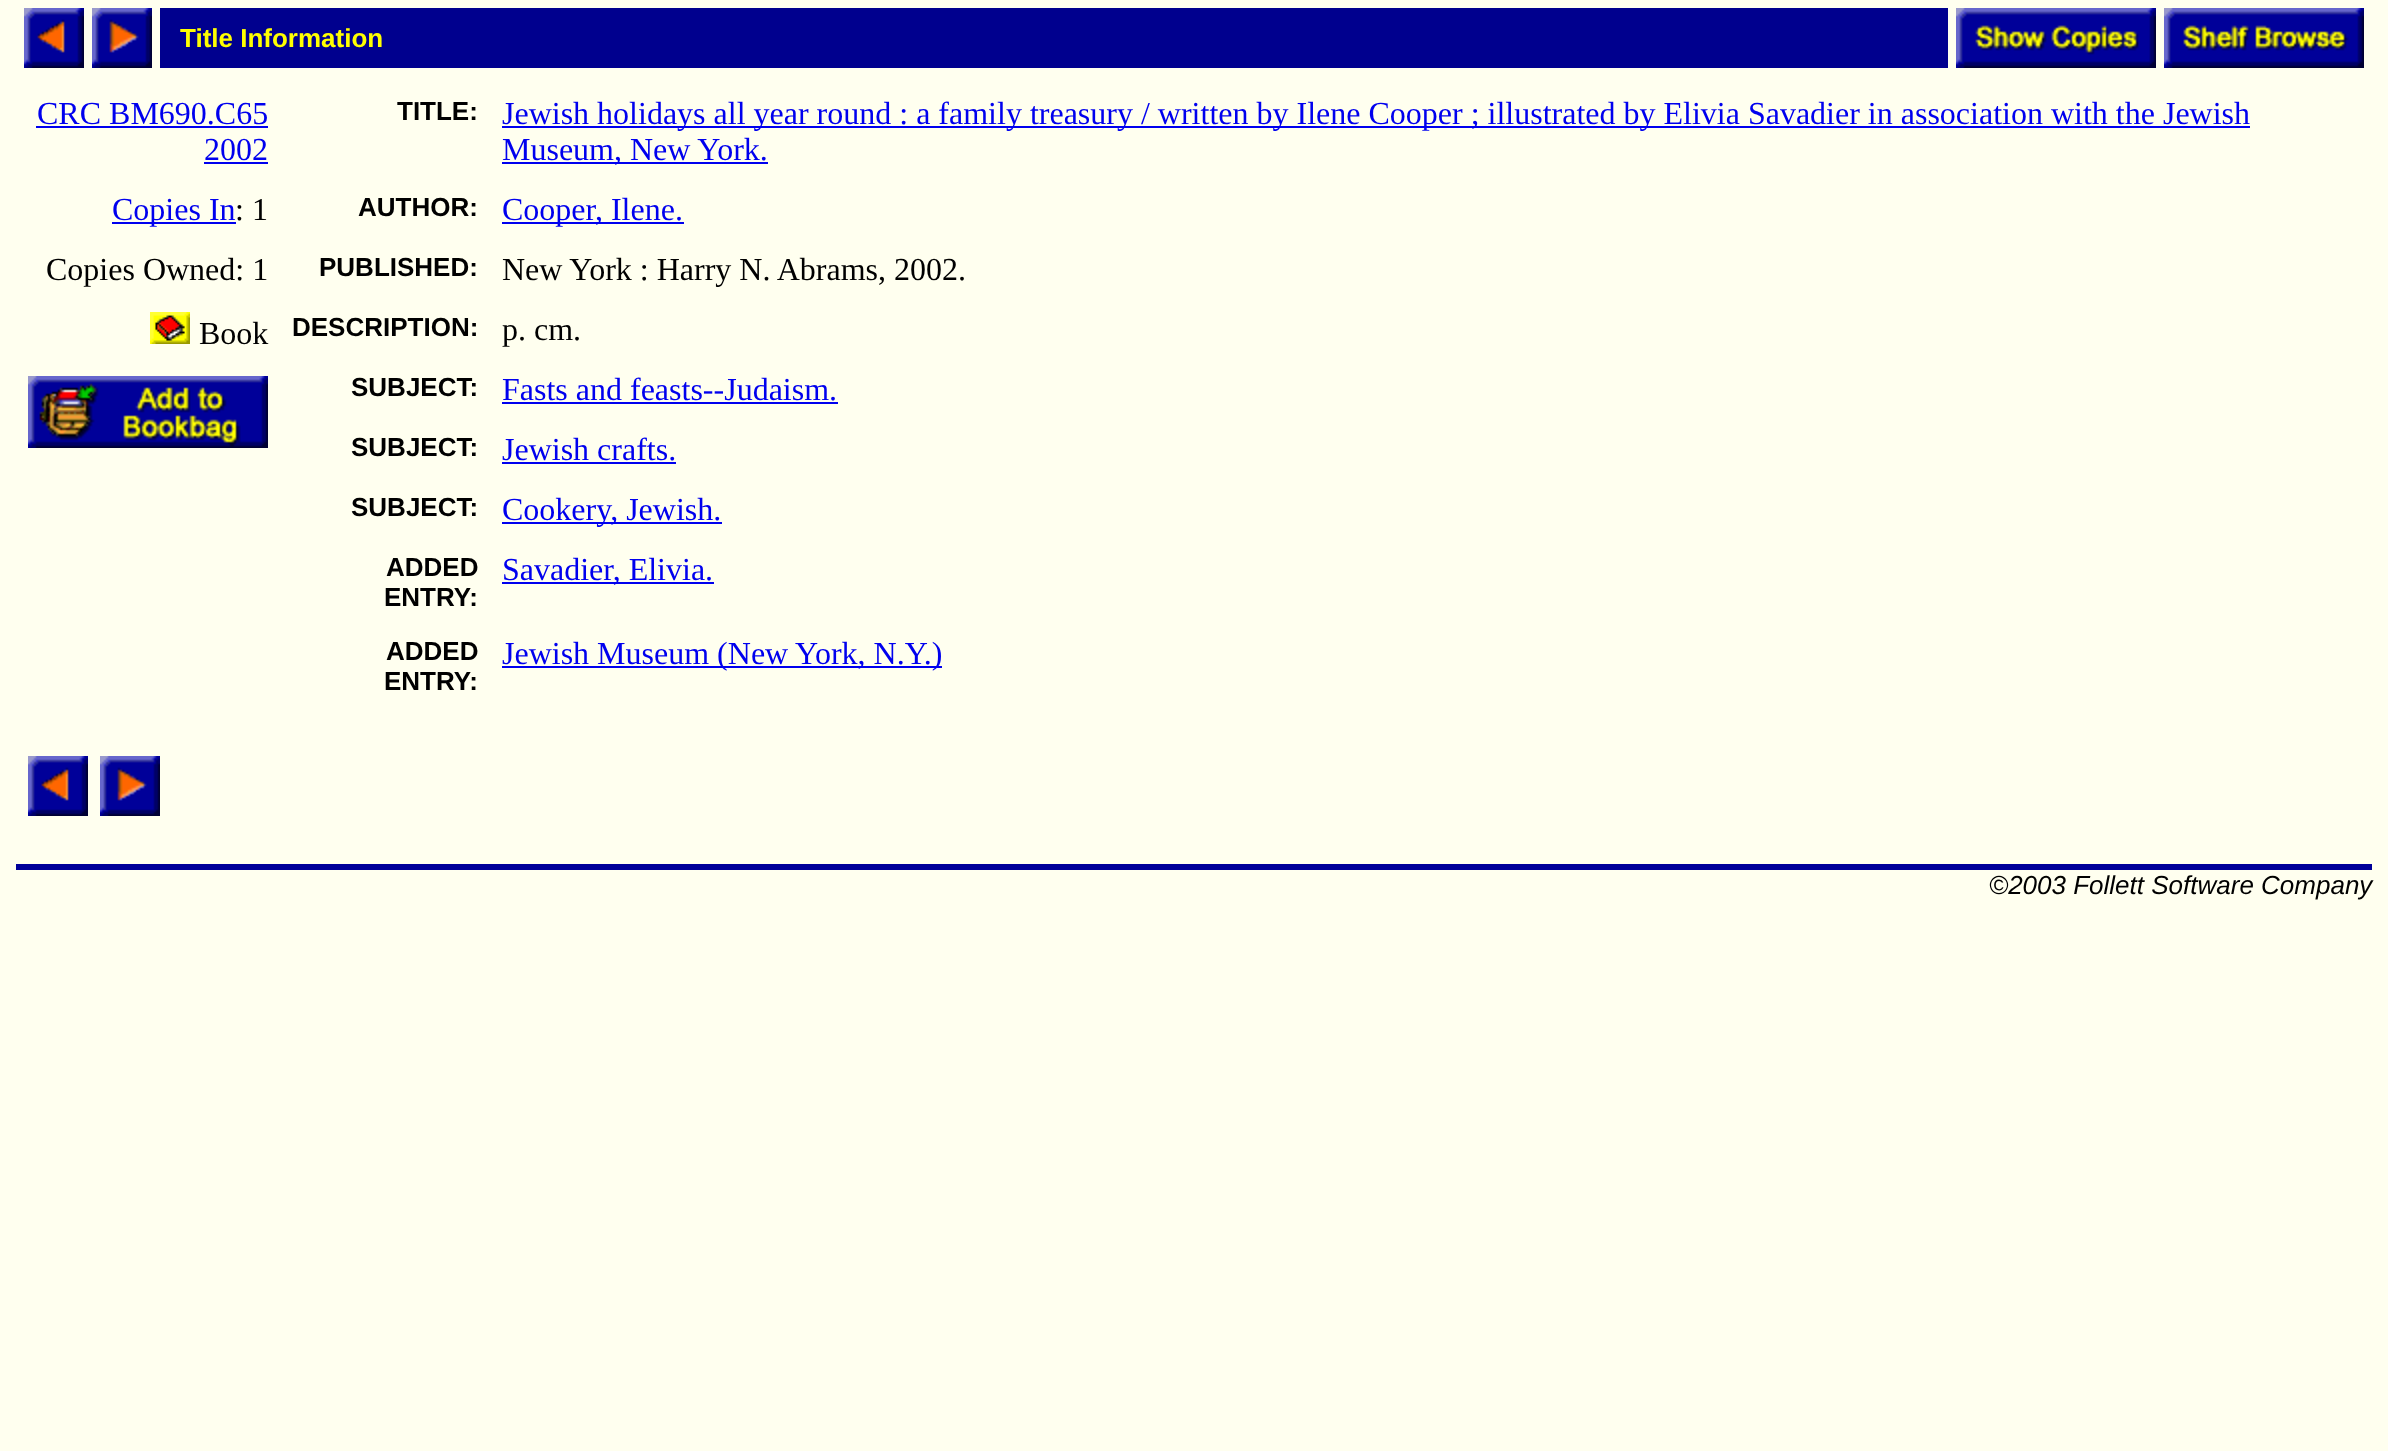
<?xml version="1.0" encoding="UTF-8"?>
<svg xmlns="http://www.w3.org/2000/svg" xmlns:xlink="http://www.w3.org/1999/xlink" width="2388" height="1451">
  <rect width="100%" height="100%" fill="#ffffef" />
  <image x="24" y="8" width="60" height="60" xlink:href="image1.png" />
  <image x="92" y="8" width="60" height="60" xlink:href="image2.png" />
  <rect x="160" y="8" width="1788" height="60" fill="#00008e" />
  <image x="1956" y="8" width="200" height="60" xlink:href="image3.png" />
  <image x="2164" y="8" width="200" height="60" xlink:href="image4.png" />
  <rect x="36" y="126" width="232" height="2" fill="#0000ee" />
  <rect x="204" y="162" width="64" height="2" fill="#0000ee" />
  <rect x="112" y="222" width="124" height="2" fill="#0000ee" />
  <image x="150" y="312" width="40" height="32" xlink:href="image5.png" />
  <image x="28" y="376" width="240" height="72" xlink:href="image6.png" />
  <rect x="502" y="126" width="1748" height="2" fill="#0000ee" />
  <rect x="502" y="162" width="266" height="2" fill="#0000ee" />
  <rect x="502" y="222" width="182" height="2" fill="#0000ee" />
  <rect x="502" y="402" width="336" height="2" fill="#0000ee" />
  <rect x="502" y="462" width="174" height="2" fill="#0000ee" />
  <rect x="502" y="522" width="220" height="2" fill="#0000ee" />
  <rect x="502" y="582" width="212" height="2" fill="#0000ee" />
  <rect x="502" y="666" width="440" height="2" fill="#0000ee" />
  <image x="28" y="756" width="60" height="60" xlink:href="image1.png" />
  <image x="100" y="756" width="60" height="60" xlink:href="image2.png" />
  <rect x="16" y="864" width="2356" height="6" fill="#000099" />
  <text x="180" y="47" style="font-family: Liberation Sans; font-size: 26px; font-weight: bold; fill: #ffff00">Title Information</text>
  <text x="37" y="124" style="font-family: Liberation Serif; font-size: 32px; fill: #0000ee">CRC BM690.C65</text>
  <text x="204" y="160" style="font-family: Liberation Serif; font-size: 32px; fill: #0000ee">2002</text>
  <text x="112" y="220" style="font-family: Liberation Serif; font-size: 32px; fill: #0000ee">Copies In</text>
  <text x="235" y="220" style="font-family: Liberation Serif; font-size: 32px; fill: #000000">: 1</text>
  <text x="46" y="280" style="font-family: Liberation Serif; font-size: 32px; fill: #000000">Copies Owned: 1</text>
  <text x="199" y="344" style="font-family: Liberation Serif; font-size: 32px; fill: #000000">Book</text>
  <text x="397" y="120" style="font-family: Liberation Sans; font-size: 26px; font-weight: bold; fill: #000000">TITLE:</text>
  <text x="502" y="124" style="font-family: Liberation Serif; font-size: 32px; fill: #0000ee">Jewish holidays all year round : a family treasury / written by Ilene Cooper ; illustrated by Elivia Savadier in association with the Jewish</text>
  <text x="502" y="160" style="font-family: Liberation Serif; font-size: 32px; fill: #0000ee">Museum, New York.</text>
  <text x="358" y="216" style="font-family: Liberation Sans; font-size: 26px; font-weight: bold; fill: #000000">AUTHOR:</text>
  <text x="502" y="220" style="font-family: Liberation Serif; font-size: 32px; fill: #0000ee">Cooper, Ilene.</text>
  <text x="319" y="276" style="font-family: Liberation Sans; font-size: 26px; font-weight: bold; fill: #000000">PUBLISHED:</text>
  <text x="502" y="280" style="font-family: Liberation Serif; font-size: 32px; fill: #000000">New York : Harry N. Abrams, 2002.</text>
  <text x="292" y="336" style="font-family: Liberation Sans; font-size: 26px; font-weight: bold; fill: #000000">DESCRIPTION:</text>
  <text x="502" y="340" style="font-family: Liberation Serif; font-size: 32px; fill: #000000">p. cm.</text>
  <text x="351" y="396" style="font-family: Liberation Sans; font-size: 26px; font-weight: bold; fill: #000000">SUBJECT:</text>
  <text x="502" y="400" style="font-family: Liberation Serif; font-size: 32px; fill: #0000ee">Fasts and feasts--Judaism.</text>
  <text x="351" y="456" style="font-family: Liberation Sans; font-size: 26px; font-weight: bold; fill: #000000">SUBJECT:</text>
  <text x="502" y="460" style="font-family: Liberation Serif; font-size: 32px; fill: #0000ee">Jewish crafts.</text>
  <text x="351" y="516" style="font-family: Liberation Sans; font-size: 26px; font-weight: bold; fill: #000000">SUBJECT:</text>
  <text x="502" y="520" style="font-family: Liberation Serif; font-size: 32px; fill: #0000ee">Cookery, Jewish.</text>
  <text x="386" y="576" style="font-family: Liberation Sans; font-size: 26px; font-weight: bold; fill: #000000">ADDED</text>
  <text x="384" y="606" style="font-family: Liberation Sans; font-size: 26px; font-weight: bold; fill: #000000">ENTRY:</text>
  <text x="502" y="580" style="font-family: Liberation Serif; font-size: 32px; fill: #0000ee">Savadier, Elivia.</text>
  <text x="386" y="660" style="font-family: Liberation Sans; font-size: 26px; font-weight: bold; fill: #000000">ADDED</text>
  <text x="384" y="690" style="font-family: Liberation Sans; font-size: 26px; font-weight: bold; fill: #000000">ENTRY:</text>
  <text x="502" y="664" style="font-family: Liberation Serif; font-size: 32px; fill: #0000ee">Jewish Museum (New York, N.Y.)</text>
  <text x="1989" y="894" style="font-family: Liberation Sans; font-size: 26px; font-style: italic; fill: #000000">©2003 Follett Software Company</text>
</svg>
